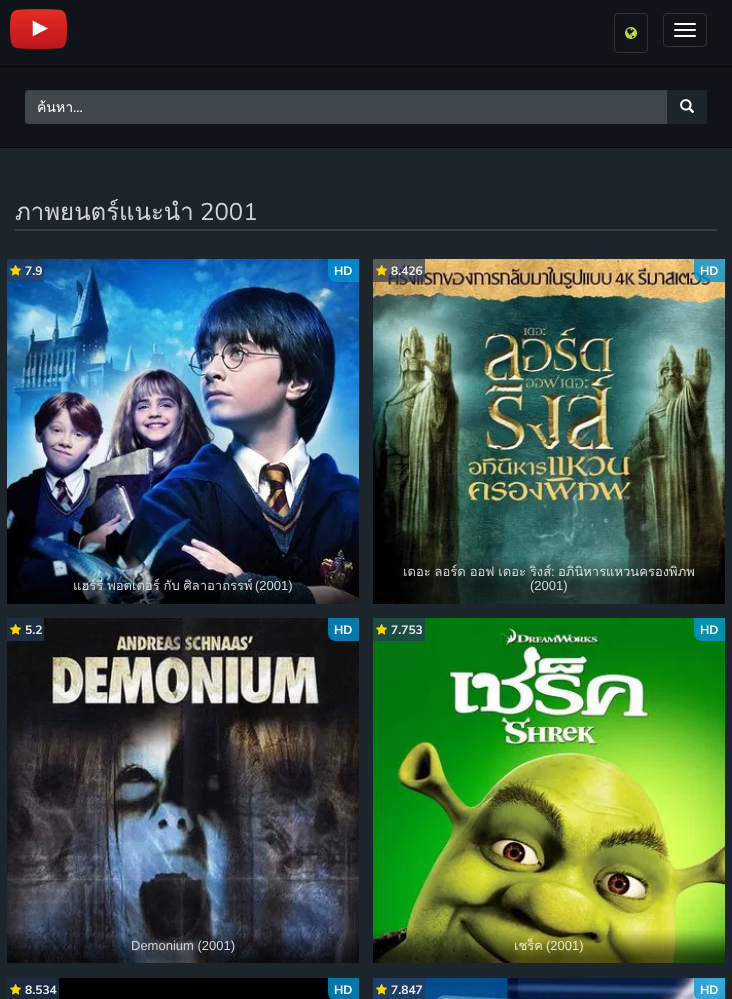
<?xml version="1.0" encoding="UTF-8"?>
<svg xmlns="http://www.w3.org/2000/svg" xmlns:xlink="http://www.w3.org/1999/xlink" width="732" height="999">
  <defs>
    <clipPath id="clip1"><rect x="37" y="96" width="619" height="22" /></clipPath>
  </defs>
  <rect width="100%" height="100%" fill="#1c242c" />
  <rect width="732" height="66" fill="#10141a" />
  <rect y="66" width="732" height="1" fill="#080808" />
  <image x="10" y="9" width="57" height="40" xlink:href="image1.png" />
  <rect x="614.5" y="13.5" width="33" height="39" rx="3.5" fill="none" stroke="#333333" />
  <image x="625" y="27" width="12" height="12" xlink:href="image2.png" />
  <rect x="663.5" y="13.5" width="43" height="33" rx="3.5" fill="none" stroke="#333333" />
  <rect x="674" y="23" width="22" height="2" rx="1" fill="#ffffff" />
  <rect x="674" y="29" width="22" height="2" rx="1" fill="#ffffff" />
  <rect x="674" y="35" width="22" height="2" rx="1" fill="#ffffff" />
  <rect y="67" width="732" height="80" fill="#10141a" />
  <rect y="147" width="732" height="1" fill="#080808" />
  <rect x="25" y="90" width="682" height="34" fill="#1c242c" />
  <path d="M 29 90 h 639 v 34 h -639 c -2 0 -4 -2 -4 -4 v -26 c 0 -2 2 -4 4 -4 z" fill="#3f464c" />
  <path d="M 29 91 h 639 v -1 h -639 c -3 0 -4 2 -4 5 c 0 -2 2 -4 4 -4 z" fill="#000000" fill-opacity="0.07" />
  <path d="M 667 90 h 36 c 2 0 4 2 4 4 v 26 c 0 2 -2 4 -4 4 h -36 z" fill="#1c242c" />
  <image x="680" y="99" width="15" height="14" xlink:href="image3.png" />
  <rect x="15" y="229" width="702" height="2" fill="#3e3e3e" />
  <image x="7" y="259" width="352" height="345" xlink:href="image4.png" />
  <rect x="7" y="259" width="37" height="23" fill="#273b59" fill-opacity="0.7" />
  <image x="10" y="265" width="12" height="11" xlink:href="image5.png" />
  <path d="M 328 259 h 31 v 23 h -23 c -4.5 0 -8 -3.5 -8 -8 z" fill="#0495d4" fill-opacity="0.79" />
  <image x="7" y="570" width="352" height="34" xlink:href="image6.png" />
  <image x="373" y="259" width="352" height="345" xlink:href="image7.png" />
  <rect x="373" y="259" width="52" height="23" fill="#273b59" fill-opacity="0.7" />
  <image x="376" y="265" width="11" height="11" xlink:href="image8.png" />
  <path d="M 694 259 h 31 v 23 h -23 c -4.5 0 -8 -3.5 -8 -8 z" fill="#0495d4" fill-opacity="0.79" />
  <image x="383" y="557" width="338" height="47" xlink:href="image9.png" />
  <image x="7" y="618" width="352" height="345" xlink:href="image10.png" />
  <rect x="7" y="618" width="37" height="23" fill="#273b59" fill-opacity="0.7" />
  <image x="10" y="624" width="12" height="11" xlink:href="image11.png" />
  <path d="M 328 618 h 31 v 23 h -23 c -4.5 0 -8 -3.5 -8 -8 z" fill="#0495d4" fill-opacity="0.79" />
  <image x="7" y="930" width="352" height="33" xlink:href="image12.png" />
  <image x="373" y="618" width="352" height="345" xlink:href="image13.png" />
  <rect x="373" y="618" width="52" height="23" fill="#273b59" fill-opacity="0.7" />
  <image x="376" y="624" width="12" height="11" xlink:href="image14.png" />
  <path d="M 694 618 h 31 v 23 h -23 c -4.5 0 -8 -3.5 -8 -8 z" fill="#0390aa" />
  <image x="373" y="930" width="352" height="33" xlink:href="image15.png" />
  <rect x="7" y="978" width="52" height="21" fill="#1b293e" />
  <image x="10" y="984" width="12" height="11" xlink:href="image16.png" />
  <rect x="59" y="978" width="272" height="21" fill="#000000" />
  <path d="M 328 978 h 31 v 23 h -23 c -4.5 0 -8 -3.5 -8 -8 z" fill="#0376a7" />
  <image x="373" y="978" width="352" height="21" xlink:href="image17.png" />
  <rect x="373" y="978" width="52" height="21" fill="#273b59" fill-opacity="0.7" />
  <image x="376" y="984" width="12" height="11" xlink:href="image18.png" />
  <path d="M 694 978 h 31 v 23 h -23 c -4.5 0 -8 -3.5 -8 -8 z" fill="#0495d4" fill-opacity="0.79" />
  <g clip-path="url(#clip1)">
    <text x="37" y="112" style="font-family: Loma; font-size: 14px; fill: #ffffff">ค้นหา</text>
  </g>
  <text x="73" y="112" style="font-family: Muli; font-size: 14px; fill: #ffffff">...</text>
  <text x="15" y="220" style="font-family: Loma; font-size: 24px; fill: #d2d3d5">ภาพยนตร์แนะนำ</text>
  <text x="200" y="220" style="font-family: Muli; font-size: 24px; fill: #d2d3d5">2001</text>
  <text x="25" y="275" style="font-family: Muli; font-size: 12px; font-weight: bold; fill: #ebebeb">7.9</text>
  <text x="334" y="275" style="font-family: Muli; font-size: 12px; font-weight: bold; fill: #ffffff">HD</text>
  <text x="73" y="590" word-spacing="-0.5" style="font-family: Loma; font-size: 13px; fill: #d2d3d5">แฮร์รี่ พอตเตอร์ กับ ศิลาอาถรรพ์</text>
  <text x="255" y="590" style="font-family: Liberation Sans; font-size: 13px; fill: #d2d3d5">(2001)</text>
  <text x="391" y="275" style="font-family: Muli; font-size: 12px; font-weight: bold; fill: #ebebeb">8.426</text>
  <text x="700" y="275" style="font-family: Muli; font-size: 12px; font-weight: bold; fill: #ffffff">HD</text>
  <text x="403" y="576" word-spacing="-0.5" style="font-family: Loma; font-size: 13px; fill: #d2d3d5">เดอะ ลอร์ด ออฟ เดอะ ริงส์</text>
  <text x="551" y="576" style="font-family: Liberation Sans; font-size: 13px; fill: #d6dcdc">:</text>
  <text x="558" y="576" style="font-family: Loma; font-size: 13px; fill: #d6dcdc">อภินิหารแหวนครองพิภพ</text>
  <text x="530" y="590" style="font-family: Liberation Sans; font-size: 13px; fill: #d2d3d5">(2001)</text>
  <text x="25" y="634" style="font-family: Muli; font-size: 12px; font-weight: bold; fill: #ebebeb">5.2</text>
  <text x="334" y="634" style="font-family: Muli; font-size: 12px; font-weight: bold; fill: #ffffff">HD</text>
  <text x="131" y="950" style="font-family: Liberation Sans; font-size: 13px; fill: #d2d3d5">Demonium (2001)</text>
  <text x="391" y="634" style="font-family: Muli; font-size: 12px; font-weight: bold; fill: #ebebeb">7.753</text>
  <text x="700" y="634" style="font-family: Muli; font-size: 12px; font-weight: bold; fill: #ffffff">HD</text>
  <text x="514" y="950" style="font-family: Loma; font-size: 13px; fill: #e6e6d3">เชร็ค</text>
  <text x="546" y="950" style="font-family: Liberation Sans; font-size: 13px; fill: #e6e6d3">(2001)</text>
  <text x="25" y="994" style="font-family: Muli; font-size: 12px; font-weight: bold; fill: #ebebeb">8.534</text>
  <text x="334" y="994" style="font-family: Muli; font-size: 12px; font-weight: bold; fill: #ffffff">HD</text>
  <text x="391" y="994" style="font-family: Muli; font-size: 12px; font-weight: bold; fill: #ebebeb">7.847</text>
  <text x="700" y="994" style="font-family: Muli; font-size: 12px; font-weight: bold; fill: #ffffff">HD</text>
</svg>
